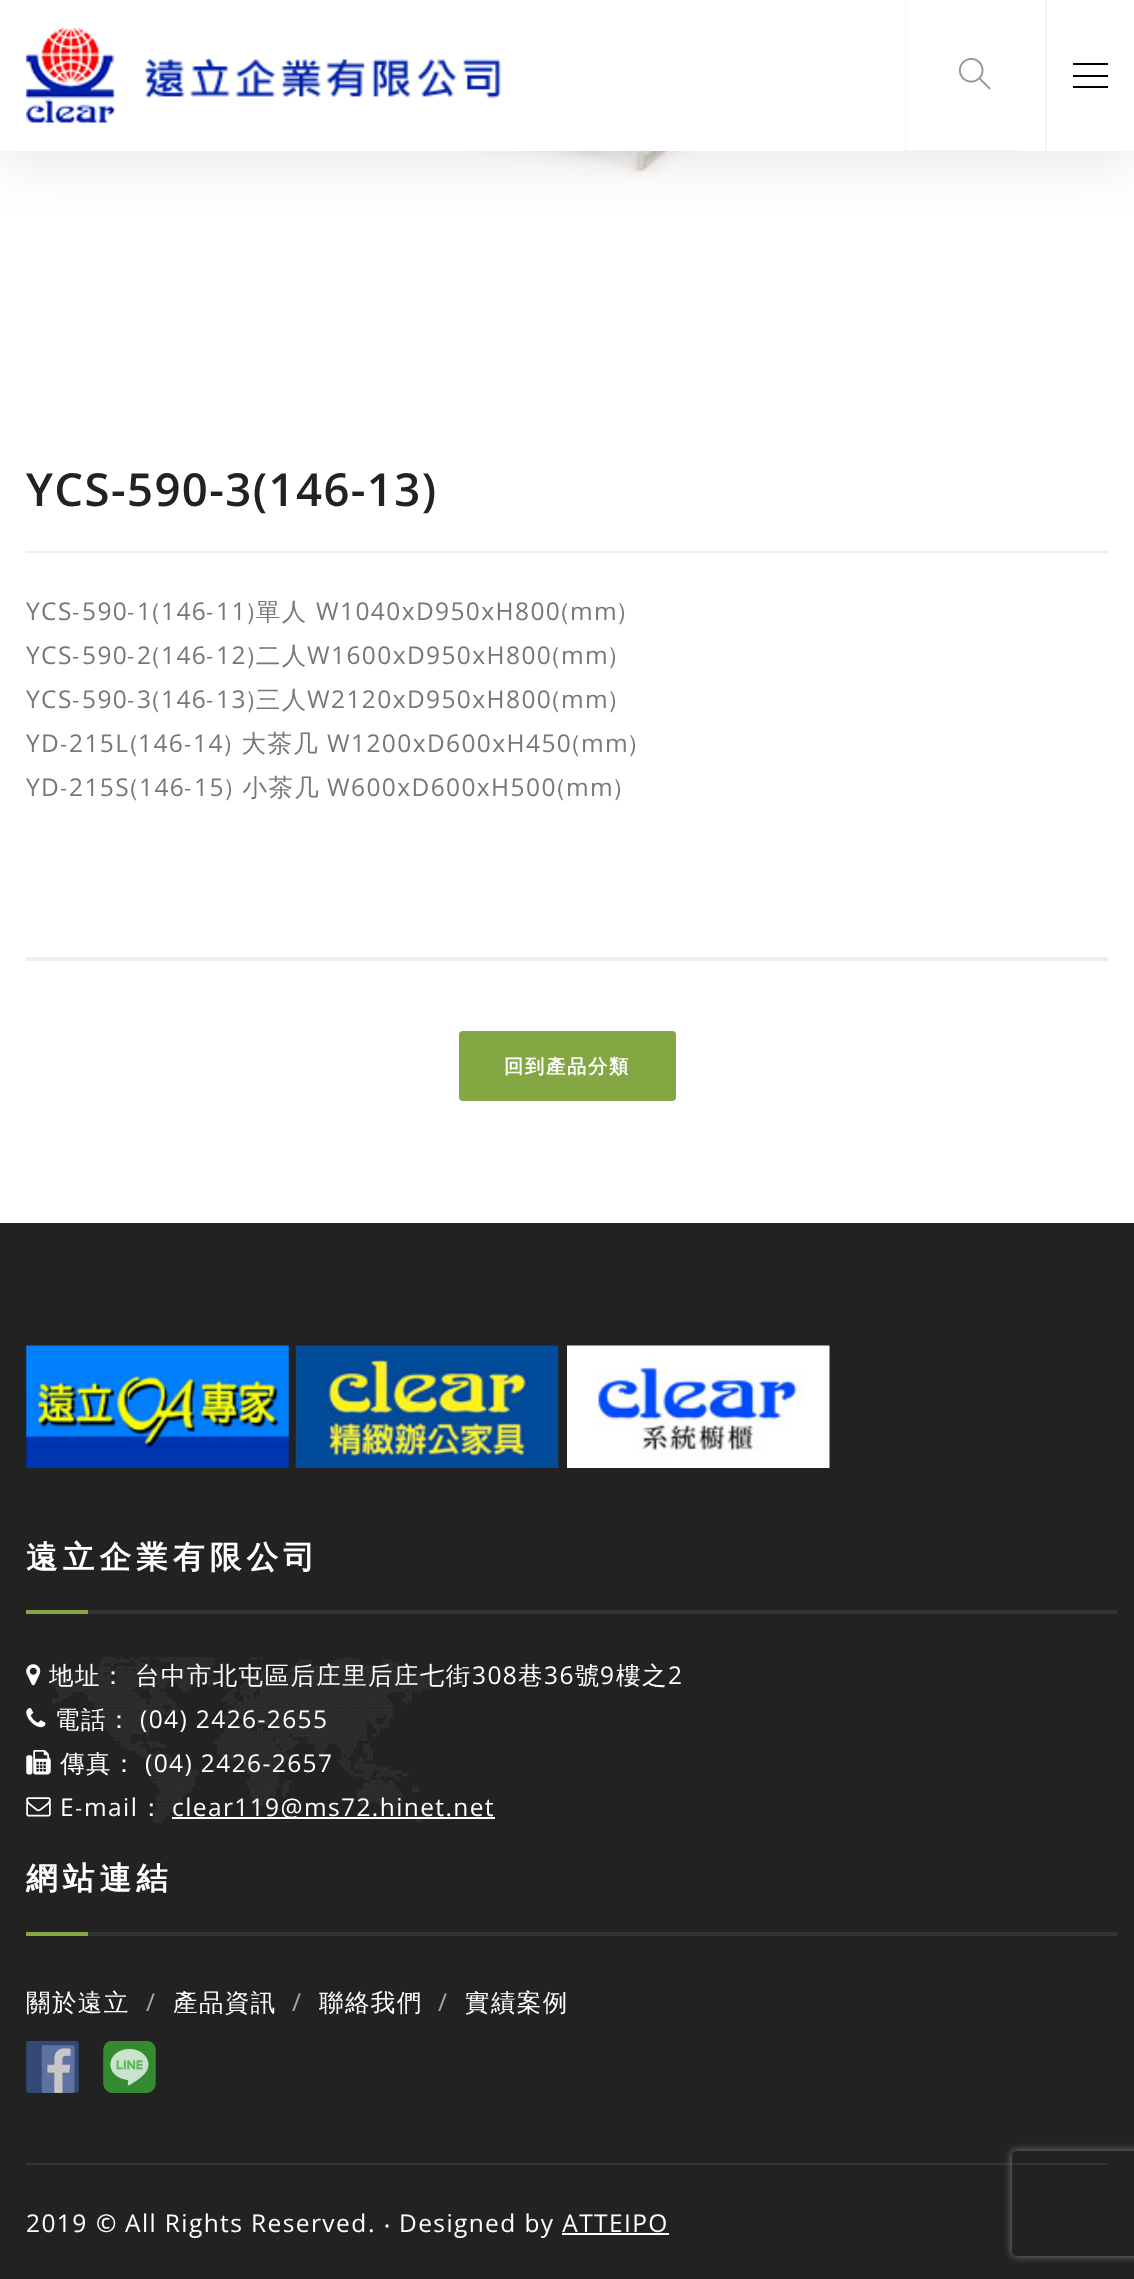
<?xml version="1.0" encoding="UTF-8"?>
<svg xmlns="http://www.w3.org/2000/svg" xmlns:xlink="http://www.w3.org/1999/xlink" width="1134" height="2279">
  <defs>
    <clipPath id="clip1"><path d="M 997 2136 h 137 v 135 h -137 z m 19 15 h 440 c 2 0 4 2 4 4 v 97 c 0 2 -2 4 -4 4 h -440 c -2 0 -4 -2 -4 -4 v -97 c 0 -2 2 -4 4 -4 z" clip-rule="evenodd" /></clipPath>
  </defs>
  <rect width="100%" height="100%" fill="#ffffff" />
  <image x="59" y="151" width="1007" height="26" xlink:href="image3.png" />
  <rect y="9" width="1134" height="150" fill="#000000" fill-opacity="0.1" filter="blur(30.5px)" />
  <rect width="1134" height="151" fill="#ffffff" />
  <image x="26" y="28" width="475" height="95" xlink:href="image1.png" />
  <path d="M 905 0 v 151 h 112 v -1 h -111 v -150 z" fill="#f5f5f5" />
  <image x="958" y="58" width="33" height="32" xlink:href="image2.png" />
  <rect x="1045" width="2" height="151" fill="#f5f5f5" />
  <rect x="1073" y="63" width="35" height="2" fill="#000000" />
  <rect x="1073" y="75" width="35" height="2" fill="#000000" />
  <rect x="1073" y="86" width="35" height="2" fill="#000000" />
  <rect x="26" y="551" width="1082" height="2" fill="#eeeeee" />
  <rect x="26" y="957" width="1082" height="4" fill="#eeeeee" />
  <rect x="461" y="1033" width="213" height="66" rx="2" fill="#83a743" stroke="#83a743" stroke-width="4" />
  <rect y="1223" width="1134" height="1056" fill="#222222" />
  <image x="26" y="1345" width="263" height="123" xlink:href="image4.png" />
  <image x="295" y="1345" width="264" height="123" xlink:href="image5.png" />
  <image x="567" y="1345" width="263" height="123" xlink:href="image6.png" />
  <rect x="26" y="1610" width="62" height="4" fill="#83a743" />
  <rect x="88" y="1610" width="1029" height="4" fill="#333333" />
  <image x="52" y="1657" width="389" height="166" xlink:href="image7.png" />
  <image x="26" y="1664" width="15" height="22" xlink:href="image8.png" />
  <image x="26" y="1708" width="20" height="20" xlink:href="image9.png" />
  <image x="26" y="1750" width="25" height="25" xlink:href="image10.png" />
  <image x="26" y="1797" width="25" height="20" xlink:href="image11.png" />
  <rect x="172" y="1817" width="323" height="2" fill="#ffffff" />
  <rect x="26" y="1932" width="62" height="4" fill="#83a743" />
  <rect x="88" y="1932" width="1029" height="4" fill="#333333" />
  <image x="26" y="2041" width="53" height="52" xlink:href="image12.png" />
  <image x="103" y="2041" width="53" height="52" xlink:href="image13.png" />
  <rect x="26" y="2163" width="1082" height="2" fill="#333333" />
  <rect x="562" y="2233" width="107" height="2" fill="#ffffff" />
  <g clip-path="url(#clip1)">
    <rect x="1012" y="2151" width="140" height="105" rx="4" fill="#808080" filter="blur(4.5px)" />
  </g>
  <text x="26" y="506" style="font-family: Open Sans; font-size: 45.5px; font-weight: 600; letter-spacing: 1.4px; fill: #222222">YCS-590-3(146-13)</text>
  <text x="26" y="620" style="font-family: Open Sans; font-size: 24.5px; letter-spacing: 1.4px; fill: #777777">YCS</text>
  <text x="73" y="620" style="font-family: WenQuanYi Zen Hei; font-size: 24.5px; font-weight: 500; letter-spacing: 1.4px; fill: #777777">-</text>
  <text x="82" y="620" style="font-family: Open Sans; font-size: 24.5px; letter-spacing: 1.4px; fill: #777777">590</text>
  <text x="128" y="620" style="font-family: WenQuanYi Zen Hei; font-size: 24.5px; font-weight: 500; letter-spacing: 1.4px; fill: #777777">-</text>
  <text x="137" y="620" style="font-family: Open Sans; font-size: 24.5px; letter-spacing: 1.4px; fill: #777777">1</text>
  <text x="152" y="620" style="font-family: WenQuanYi Zen Hei; font-size: 24.5px; font-weight: 500; letter-spacing: 1.4px; fill: #777777">(</text>
  <text x="161" y="620" style="font-family: Open Sans; font-size: 24.5px; letter-spacing: 1.4px; fill: #777777">146</text>
  <text x="207" y="620" style="font-family: WenQuanYi Zen Hei; font-size: 24.5px; font-weight: 500; letter-spacing: 1.4px; fill: #777777">-</text>
  <text x="216" y="620" style="font-family: Open Sans; font-size: 24.5px; letter-spacing: 1.4px; fill: #777777">11</text>
  <text x="247" y="620" style="font-family: WenQuanYi Zen Hei; font-size: 24.5px; font-weight: 500; letter-spacing: 1.4px; fill: #777777">)單人</text>
  <text x="316" y="620" style="font-family: Open Sans; font-size: 24.5px; letter-spacing: 1.4px; fill: #777777">W1040xD950xH800</text>
  <text x="561" y="620" style="font-family: WenQuanYi Zen Hei; font-size: 24.5px; font-weight: 500; letter-spacing: 1.4px; fill: #777777">(</text>
  <text x="570" y="620" style="font-family: Open Sans; font-size: 24.5px; letter-spacing: 1.4px; fill: #777777">mm</text>
  <text x="618" y="620" style="font-family: WenQuanYi Zen Hei; font-size: 24.5px; font-weight: 500; letter-spacing: 1.4px; fill: #777777">)</text>
  <text x="26" y="664" style="font-family: Open Sans; font-size: 24.5px; letter-spacing: 1.4px; fill: #777777">YCS</text>
  <text x="73" y="664" style="font-family: WenQuanYi Zen Hei; font-size: 24.5px; font-weight: 500; letter-spacing: 1.4px; fill: #777777">-</text>
  <text x="82" y="664" style="font-family: Open Sans; font-size: 24.5px; letter-spacing: 1.4px; fill: #777777">590</text>
  <text x="128" y="664" style="font-family: WenQuanYi Zen Hei; font-size: 24.5px; font-weight: 500; letter-spacing: 1.4px; fill: #777777">-</text>
  <text x="137" y="664" style="font-family: Open Sans; font-size: 24.5px; letter-spacing: 1.4px; fill: #777777">2</text>
  <text x="152" y="664" style="font-family: WenQuanYi Zen Hei; font-size: 24.5px; font-weight: 500; letter-spacing: 1.4px; fill: #777777">(</text>
  <text x="161" y="664" style="font-family: Open Sans; font-size: 24.5px; letter-spacing: 1.4px; fill: #777777">146</text>
  <text x="207" y="664" style="font-family: WenQuanYi Zen Hei; font-size: 24.5px; font-weight: 500; letter-spacing: 1.4px; fill: #777777">-</text>
  <text x="216" y="664" style="font-family: Open Sans; font-size: 24.5px; letter-spacing: 1.4px; fill: #777777">12</text>
  <text x="247" y="664" style="font-family: WenQuanYi Zen Hei; font-size: 24.5px; font-weight: 500; letter-spacing: 1.4px; fill: #777777">)二人</text>
  <text x="307" y="664" style="font-family: Open Sans; font-size: 24.5px; letter-spacing: 1.4px; fill: #777777">W1600xD950xH800</text>
  <text x="552" y="664" style="font-family: WenQuanYi Zen Hei; font-size: 24.5px; font-weight: 500; letter-spacing: 1.4px; fill: #777777">(</text>
  <text x="561" y="664" style="font-family: Open Sans; font-size: 24.5px; letter-spacing: 1.4px; fill: #777777">mm</text>
  <text x="609" y="664" style="font-family: WenQuanYi Zen Hei; font-size: 24.5px; font-weight: 500; letter-spacing: 1.4px; fill: #777777">)</text>
  <text x="26" y="708" style="font-family: Open Sans; font-size: 24.5px; letter-spacing: 1.4px; fill: #777777">YCS</text>
  <text x="73" y="708" style="font-family: WenQuanYi Zen Hei; font-size: 24.5px; font-weight: 500; letter-spacing: 1.4px; fill: #777777">-</text>
  <text x="82" y="708" style="font-family: Open Sans; font-size: 24.5px; letter-spacing: 1.4px; fill: #777777">590</text>
  <text x="128" y="708" style="font-family: WenQuanYi Zen Hei; font-size: 24.5px; font-weight: 500; letter-spacing: 1.4px; fill: #777777">-</text>
  <text x="137" y="708" style="font-family: Open Sans; font-size: 24.5px; letter-spacing: 1.4px; fill: #777777">3</text>
  <text x="152" y="708" style="font-family: WenQuanYi Zen Hei; font-size: 24.5px; font-weight: 500; letter-spacing: 1.4px; fill: #777777">(</text>
  <text x="161" y="708" style="font-family: Open Sans; font-size: 24.5px; letter-spacing: 1.4px; fill: #777777">146</text>
  <text x="207" y="708" style="font-family: WenQuanYi Zen Hei; font-size: 24.5px; font-weight: 500; letter-spacing: 1.4px; fill: #777777">-</text>
  <text x="216" y="708" style="font-family: Open Sans; font-size: 24.5px; letter-spacing: 1.4px; fill: #777777">13</text>
  <text x="247" y="708" style="font-family: WenQuanYi Zen Hei; font-size: 24.5px; font-weight: 500; letter-spacing: 1.4px; fill: #777777">)三人</text>
  <text x="307" y="708" style="font-family: Open Sans; font-size: 24.5px; letter-spacing: 1.4px; fill: #777777">W2120xD950xH800</text>
  <text x="552" y="708" style="font-family: WenQuanYi Zen Hei; font-size: 24.5px; font-weight: 500; letter-spacing: 1.4px; fill: #777777">(</text>
  <text x="561" y="708" style="font-family: Open Sans; font-size: 24.5px; letter-spacing: 1.4px; fill: #777777">mm</text>
  <text x="609" y="708" style="font-family: WenQuanYi Zen Hei; font-size: 24.5px; font-weight: 500; letter-spacing: 1.4px; fill: #777777">)</text>
  <text x="26" y="752" style="font-family: Open Sans; font-size: 24.5px; letter-spacing: 1.4px; fill: #777777">YD</text>
  <text x="61" y="752" style="font-family: WenQuanYi Zen Hei; font-size: 24.5px; font-weight: 500; letter-spacing: 1.4px; fill: #777777">-</text>
  <text x="69" y="752" style="font-family: Open Sans; font-size: 24.5px; letter-spacing: 1.4px; fill: #777777">215L</text>
  <text x="130" y="752" style="font-family: WenQuanYi Zen Hei; font-size: 24.5px; font-weight: 500; letter-spacing: 1.4px; fill: #777777">(</text>
  <text x="138" y="752" style="font-family: Open Sans; font-size: 24.5px; letter-spacing: 1.4px; fill: #777777">146</text>
  <text x="185" y="752" style="font-family: WenQuanYi Zen Hei; font-size: 24.5px; font-weight: 500; letter-spacing: 1.4px; fill: #777777">-</text>
  <text x="193" y="752" style="font-family: Open Sans; font-size: 24.5px; letter-spacing: 1.4px; fill: #777777">14</text>
  <text x="224" y="752" style="font-family: WenQuanYi Zen Hei; font-size: 24.5px; font-weight: 500; letter-spacing: 1.4px; fill: #777777">) 大茶几</text>
  <text x="327" y="752" style="font-family: Open Sans; font-size: 24.5px; letter-spacing: 1.4px; fill: #777777">W1200xD600xH450</text>
  <text x="572" y="752" style="font-family: WenQuanYi Zen Hei; font-size: 24.5px; font-weight: 500; letter-spacing: 1.4px; fill: #777777">(</text>
  <text x="581" y="752" style="font-family: Open Sans; font-size: 24.5px; letter-spacing: 1.4px; fill: #777777">mm</text>
  <text x="629" y="752" style="font-family: WenQuanYi Zen Hei; font-size: 24.5px; font-weight: 500; letter-spacing: 1.4px; fill: #777777">)</text>
  <text x="26" y="796" style="font-family: Open Sans; font-size: 24.5px; letter-spacing: 1.4px; fill: #777777">YD</text>
  <text x="61" y="796" style="font-family: WenQuanYi Zen Hei; font-size: 24.5px; font-weight: 500; letter-spacing: 1.4px; fill: #777777">-</text>
  <text x="69" y="796" style="font-family: Open Sans; font-size: 24.5px; letter-spacing: 1.4px; fill: #777777">215S</text>
  <text x="130" y="796" style="font-family: WenQuanYi Zen Hei; font-size: 24.5px; font-weight: 500; letter-spacing: 1.4px; fill: #777777">(</text>
  <text x="139" y="796" style="font-family: Open Sans; font-size: 24.5px; letter-spacing: 1.4px; fill: #777777">146</text>
  <text x="185" y="796" style="font-family: WenQuanYi Zen Hei; font-size: 24.5px; font-weight: 500; letter-spacing: 1.4px; fill: #777777">-</text>
  <text x="194" y="796" style="font-family: Open Sans; font-size: 24.5px; letter-spacing: 1.4px; fill: #777777">15</text>
  <text x="225" y="796" style="font-family: WenQuanYi Zen Hei; font-size: 24.5px; font-weight: 500; letter-spacing: 1.4px; fill: #777777">) 小茶几</text>
  <text x="327" y="796" style="font-family: Open Sans; font-size: 24.5px; letter-spacing: 1.4px; fill: #777777">W600xD600xH500</text>
  <text x="557" y="796" style="font-family: WenQuanYi Zen Hei; font-size: 24.5px; font-weight: 500; letter-spacing: 1.4px; fill: #777777">(</text>
  <text x="566" y="796" style="font-family: Open Sans; font-size: 24.5px; letter-spacing: 1.4px; fill: #777777">mm</text>
  <text x="614" y="796" style="font-family: WenQuanYi Zen Hei; font-size: 24.5px; font-weight: 500; letter-spacing: 1.4px; fill: #777777">)</text>
  <text x="504" y="1073" style="font-family: WenQuanYi Zen Hei; font-size: 19.25px; font-weight: bold; letter-spacing: 1.75px; fill: #ffffff">回到產品分類</text>
  <text x="26" y="1568" style="font-family: WenQuanYi Zen Hei; font-size: 31.5px; font-weight: bold; letter-spacing: 5.25px; fill: #ffffff">遠立企業有限公司</text>
  <text x="49" y="1684" style="font-family: WenQuanYi Zen Hei; font-size: 24.5px; font-weight: 500; letter-spacing: 1.4px; fill: #ffffff">地址：</text>
  <text x="135" y="1684" style="font-family: WenQuanYi Zen Hei; font-size: 24.5px; font-weight: 500; letter-spacing: 1.4px; fill: #ffffff">台中市北屯區后庄里后庄七街</text>
  <text x="472" y="1684" style="font-family: Open Sans; font-size: 24.5px; letter-spacing: 1.4px; fill: #ffffff">308</text>
  <text x="518" y="1684" style="font-family: WenQuanYi Zen Hei; font-size: 24.5px; font-weight: 500; letter-spacing: 1.4px; fill: #ffffff">巷</text>
  <text x="544" y="1684" style="font-family: Open Sans; font-size: 24.5px; letter-spacing: 1.4px; fill: #ffffff">36</text>
  <text x="575" y="1684" style="font-family: WenQuanYi Zen Hei; font-size: 24.5px; font-weight: 500; letter-spacing: 1.4px; fill: #ffffff">號</text>
  <text x="600" y="1684" style="font-family: Open Sans; font-size: 24.5px; letter-spacing: 1.4px; fill: #ffffff">9</text>
  <text x="616" y="1684" style="font-family: WenQuanYi Zen Hei; font-size: 24.5px; font-weight: 500; letter-spacing: 1.4px; fill: #ffffff">樓之</text>
  <text x="668" y="1684" style="font-family: Open Sans; font-size: 24.5px; letter-spacing: 1.4px; fill: #ffffff">2</text>
  <text x="55" y="1728" style="font-family: WenQuanYi Zen Hei; font-size: 24.5px; font-weight: 500; letter-spacing: 1.4px; fill: #ffffff">電話：</text>
  <text x="140" y="1728" style="font-family: Open Sans; font-size: 24.5px; letter-spacing: 1.4px; fill: #ffffff">(04) 2426-2655</text>
  <text x="60" y="1772" style="font-family: WenQuanYi Zen Hei; font-size: 24.5px; font-weight: 500; letter-spacing: 1.4px; fill: #ffffff">傳真：</text>
  <text x="145" y="1772" style="font-family: Open Sans; font-size: 24.5px; letter-spacing: 1.4px; fill: #ffffff">(04) 2426-2657</text>
  <text x="60" y="1816" style="font-family: Open Sans; font-size: 24.5px; letter-spacing: 1.4px; fill: #ffffff">E</text>
  <text x="76" y="1816" style="font-family: WenQuanYi Zen Hei; font-size: 24.5px; font-weight: 500; letter-spacing: 1.4px; fill: #ffffff">-</text>
  <text x="84" y="1816" style="font-family: Open Sans; font-size: 24.5px; letter-spacing: 1.4px; fill: #ffffff">mail</text>
  <text x="139" y="1816" style="font-family: WenQuanYi Zen Hei; font-size: 24.5px; font-weight: 500; letter-spacing: 1.4px; fill: #ffffff">：</text>
  <text x="172" y="1816" style="font-family: Open Sans; font-size: 24.5px; letter-spacing: 1.4px; fill: #ffffff">clear119@ms72.hinet.net</text>
  <text x="26" y="1889" style="font-family: WenQuanYi Zen Hei; font-size: 31.5px; font-weight: bold; letter-spacing: 5.25px; fill: #ffffff">網站連結</text>
  <text x="26" y="2011" style="font-family: WenQuanYi Zen Hei; font-size: 24.5px; font-weight: 500; letter-spacing: 1.4px; fill: #ffffff">關於遠立</text>
  <text x="146" y="2011" style="font-family: Open Sans; font-size: 24.5px; letter-spacing: 1.4px; fill: #aaaaaa">/</text>
  <text x="173" y="2011" style="font-family: WenQuanYi Zen Hei; font-size: 24.5px; font-weight: 500; letter-spacing: 1.4px; fill: #ffffff">產品資訊</text>
  <text x="292" y="2011" style="font-family: Open Sans; font-size: 24.5px; letter-spacing: 1.4px; fill: #aaaaaa">/</text>
  <text x="319" y="2011" style="font-family: WenQuanYi Zen Hei; font-size: 24.5px; font-weight: 500; letter-spacing: 1.4px; fill: #ffffff">聯絡我們</text>
  <text x="438" y="2011" style="font-family: Open Sans; font-size: 24.5px; letter-spacing: 1.4px; fill: #aaaaaa">/</text>
  <text x="465" y="2011" style="font-family: WenQuanYi Zen Hei; font-size: 24.5px; font-weight: 500; letter-spacing: 1.4px; fill: #ffffff">實績案例</text>
  <text x="26" y="2232" style="font-family: Open Sans; font-size: 24.5px; letter-spacing: 1.4px; fill: #ffffff">2019</text>
  <text x="96" y="2232" style="font-family: Noto Sans; font-size: 24.5px; letter-spacing: 1.4px; fill: #ffffff">©</text>
  <text x="125" y="2232" style="font-family: Open Sans; font-size: 24.5px; letter-spacing: 1.4px; fill: #ffffff">All Rights Reserved</text>
  <text x="368" y="2232" style="font-family: Noto Sans; font-size: 24.5px; letter-spacing: 1.4px; fill: #ffffff">. ‧</text>
  <text x="399" y="2232" style="font-family: Open Sans; font-size: 24.5px; letter-spacing: 1.4px; fill: #ffffff">Designed by ATTEIPO</text>
</svg>
